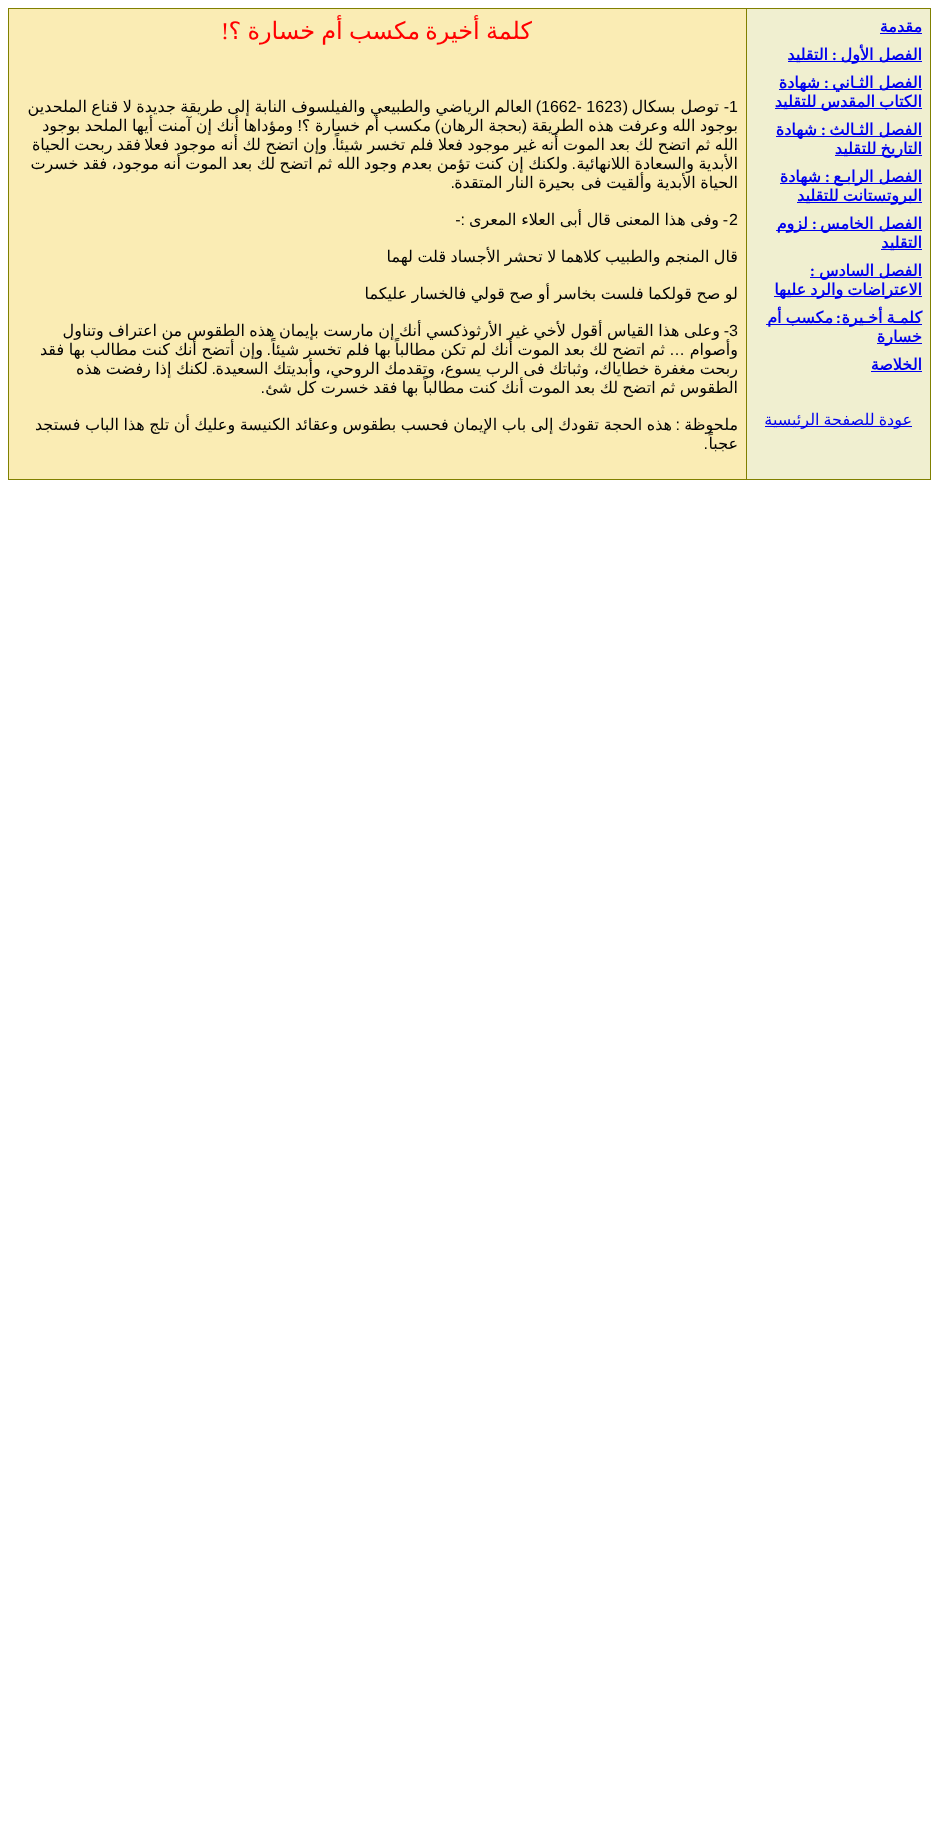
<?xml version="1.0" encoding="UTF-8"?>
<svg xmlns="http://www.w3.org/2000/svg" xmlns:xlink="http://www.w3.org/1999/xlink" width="939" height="1831">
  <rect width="100%" height="100%" fill="#ffffff" />
  <rect x="8" y="8" width="923" height="1" fill="#808000" />
  <rect x="930" y="8" width="1" height="472" fill="#808000" />
  <rect x="8" y="479" width="923" height="1" fill="#808000" />
  <rect x="8" y="8" width="1" height="472" fill="#808000" />
  <rect x="747" y="9" width="183" height="470" fill="#f0efd0" />
  <rect x="880" y="33" width="42" height="1" fill="#0000ee" />
  <rect x="788" y="61" width="134" height="1" fill="#0000ee" />
  <rect x="779" y="89" width="143" height="1" fill="#0000ee" />
  <rect x="775" y="108" width="147" height="1" fill="#0000ee" />
  <rect x="776" y="136" width="146" height="1" fill="#0000ee" />
  <rect x="835" y="155" width="87" height="1" fill="#0000ee" />
  <rect x="780" y="183" width="142" height="1" fill="#0000ee" />
  <rect x="797" y="202" width="125" height="1" fill="#0000ee" />
  <rect x="776" y="230" width="146" height="1" fill="#0000ee" />
  <rect x="881" y="249" width="41" height="1" fill="#0000ee" />
  <rect x="810" y="277" width="112" height="1" fill="#0000ee" />
  <rect x="774" y="296" width="148" height="1" fill="#0000ee" />
  <rect x="766" y="324" width="156" height="1" fill="#0000ee" />
  <rect x="877" y="343" width="45" height="1" fill="#0000ee" />
  <rect x="871" y="371" width="51" height="1" fill="#0000ee" />
  <rect x="765" y="426" width="147" height="1" fill="#0000ee" />
  <rect x="9" y="9" width="737" height="470" fill="#faecb4" />
  <rect x="746" y="8" width="1" height="472" fill="#808000" />
  <text x="922" y="32" style="font-family: DejaVu Sans; font-size: 16px; font-weight: bold; direction: rtl; fill: #0000ee">مقدمة</text>
  <text x="922" y="60" style="font-family: DejaVu Sans; font-size: 16px; font-weight: bold; direction: rtl; fill: #0000ee">الفصل الأول</text>
  <text x="837" y="60" style="font-family: Liberation Serif; font-size: 16px; font-weight: bold; direction: rtl; fill: #0000ee">:</text>
  <text x="828" y="60" style="font-family: DejaVu Sans; font-size: 16px; font-weight: bold; direction: rtl; fill: #0000ee">التقليد</text>
  <text x="922" y="88" style="font-family: DejaVu Sans; font-size: 16px; font-weight: bold; direction: rtl; fill: #0000ee">الفصل الثـاني</text>
  <text x="829" y="88" style="font-family: Liberation Serif; font-size: 16px; font-weight: bold; direction: rtl; fill: #0000ee">:</text>
  <text x="820" y="88" style="font-family: DejaVu Sans; font-size: 16px; font-weight: bold; direction: rtl; fill: #0000ee">شهادة</text>
  <text x="922" y="107" word-spacing="-1" style="font-family: DejaVu Sans; font-size: 16px; font-weight: bold; direction: rtl; fill: #0000ee">الكتاب المقدس للتقليد</text>
  <text x="922" y="135" style="font-family: DejaVu Sans; font-size: 16px; font-weight: bold; direction: rtl; fill: #0000ee">الفصل الثـالث</text>
  <text x="826" y="135" style="font-family: Liberation Serif; font-size: 16px; font-weight: bold; direction: rtl; fill: #0000ee">:</text>
  <text x="817" y="135" style="font-family: DejaVu Sans; font-size: 16px; font-weight: bold; direction: rtl; fill: #0000ee">شهادة</text>
  <text x="922" y="154" word-spacing="-1" style="font-family: DejaVu Sans; font-size: 16px; font-weight: bold; direction: rtl; fill: #0000ee">التاريخ للتقليد</text>
  <text x="922" y="182" style="font-family: DejaVu Sans; font-size: 16px; font-weight: bold; direction: rtl; fill: #0000ee">الفصل الرابـع</text>
  <text x="830" y="182" style="font-family: Liberation Serif; font-size: 16px; font-weight: bold; direction: rtl; fill: #0000ee">:</text>
  <text x="821" y="182" style="font-family: DejaVu Sans; font-size: 16px; font-weight: bold; direction: rtl; fill: #0000ee">شهادة</text>
  <text x="922" y="201" word-spacing="-1" style="font-family: DejaVu Sans; font-size: 16px; font-weight: bold; direction: rtl; fill: #0000ee">البروتستانت للتقليد</text>
  <text x="922" y="229" style="font-family: DejaVu Sans; font-size: 16px; font-weight: bold; direction: rtl; fill: #0000ee">الفصل الخامس</text>
  <text x="817" y="229" style="font-family: Liberation Serif; font-size: 16px; font-weight: bold; direction: rtl; fill: #0000ee">:</text>
  <text x="808" y="229" style="font-family: DejaVu Sans; font-size: 16px; font-weight: bold; direction: rtl; fill: #0000ee">لزوم</text>
  <text x="922" y="248" style="font-family: DejaVu Sans; font-size: 16px; font-weight: bold; direction: rtl; fill: #0000ee">التقليد</text>
  <text x="922" y="276" word-spacing="-0.5" style="font-family: DejaVu Sans; font-size: 16px; font-weight: bold; direction: rtl; fill: #0000ee">الفصل السادس</text>
  <text x="815" y="276" style="font-family: Liberation Serif; font-size: 16px; font-weight: bold; direction: rtl; fill: #0000ee">:</text>
  <text x="922" y="295" word-spacing="-1" style="font-family: DejaVu Sans; font-size: 16px; font-weight: bold; direction: rtl; fill: #0000ee">الاعتراضات والرد عليها</text>
  <text x="922" y="323" word-spacing="-1" style="font-family: DejaVu Sans; font-size: 16px; font-weight: bold; direction: rtl; fill: #0000ee">كلمـة أخـيرة</text>
  <text x="841" y="323" style="font-family: Liberation Serif; font-size: 16px; font-weight: bold; direction: rtl; fill: #0000ee">:</text>
  <text x="833" y="323" word-spacing="-1" style="font-family: DejaVu Sans; font-size: 16px; font-weight: bold; direction: rtl; fill: #0000ee">مكسب أم</text>
  <text x="922" y="342" style="font-family: DejaVu Sans; font-size: 16px; font-weight: bold; direction: rtl; fill: #0000ee">خسارة</text>
  <text x="922" y="370" style="font-family: DejaVu Sans; font-size: 16px; font-weight: bold; direction: rtl; fill: #0000ee">الخلاصة</text>
  <text x="912" y="425" word-spacing="-1" style="font-family: DejaVu Sans; font-size: 16px; direction: rtl; fill: #0000ee">عودة للصفحة الرئيسية</text>
  <text x="532" y="39" word-spacing="-1.5" style="font-family: DejaVu Sans; font-size: 24px; direction: rtl; fill: #ff0000">كلمة أخيرة</text>
  <text x="420" y="39" word-spacing="-1.5" style="font-family: DejaVu Sans; font-size: 24px; direction: rtl; fill: #ff0000">مكسب أم خسارة ؟</text>
  <text x="229" y="39" style="font-family: Liberation Serif; font-size: 24px; direction: rtl; fill: #ff0000">!</text>
  <text x="729" y="112" style="font-family: Liberation Sans; font-size: 16px; fill: #000000">1</text>
  <text x="729" y="112" style="font-family: Liberation Sans; font-size: 16px; direction: rtl; fill: #000000">-</text>
  <text x="719" y="112" style="font-family: DejaVu Sans; font-size: 16px; direction: rtl; fill: #000000">توصل بسكال</text>
  <text x="628" y="112" style="font-family: Liberation Sans; font-size: 16px; direction: rtl; fill: #000000">(</text>
  <text x="541" y="112" style="font-family: Liberation Sans; font-size: 16px; fill: #000000">1662- 1623</text>
  <text x="541" y="112" style="font-family: Liberation Sans; font-size: 16px; direction: rtl; fill: #000000">)</text>
  <text x="532" y="112" word-spacing="-0.5" style="font-family: DejaVu Sans; font-size: 16px; direction: rtl; fill: #000000">العالم الرياضي والطبيعي والفيلسوف النابة إلى</text>
  <text x="223" y="112" word-spacing="-0.6" style="font-family: DejaVu Sans; font-size: 16px; direction: rtl; fill: #000000">طريقة جديدة لا قناع الملحدين</text>
  <text x="738" y="131" word-spacing="-0.5" style="font-family: DejaVu Sans; font-size: 16px; direction: rtl; fill: #000000">بوجود الله وعرفت هذه الطريقة</text>
  <text x="527" y="131" style="font-family: Liberation Sans; font-size: 16px; direction: rtl; fill: #000000">(</text>
  <text x="522" y="131" word-spacing="-0.5" style="font-family: DejaVu Sans; font-size: 16px; direction: rtl; fill: #000000">بحجة الرهان</text>
  <text x="440" y="131" style="font-family: Liberation Sans; font-size: 16px; direction: rtl; fill: #000000">)</text>
  <text x="431" y="131" word-spacing="-0.5" style="font-family: DejaVu Sans; font-size: 16px; direction: rtl; fill: #000000">مكسب أم خسارة ؟</text>
  <text x="302" y="131" style="font-family: Liberation Sans; font-size: 16px; direction: rtl; fill: #000000">!</text>
  <text x="293" y="131" word-spacing="-0.5" style="font-family: DejaVu Sans; font-size: 16px; direction: rtl; fill: #000000">ومؤداها أنك إن آمنت أيها الملحد بوجود</text>
  <text x="738" y="150" word-spacing="-0.6" style="font-family: DejaVu Sans; font-size: 16px; direction: rtl; fill: #000000">الله ثم اتضح لك</text>
  <text x="630" y="150" word-spacing="-0.5" style="font-family: DejaVu Sans; font-size: 16px; direction: rtl; fill: #000000">بعد الموت أنه غير موجود فعلا فلم تخسر شيئاً</text>
  <text x="336" y="150" style="font-family: Liberation Sans; font-size: 16px; direction: rtl; fill: #000000">.</text>
  <text x="327" y="150" word-spacing="-0.5" style="font-family: DejaVu Sans; font-size: 16px; direction: rtl; fill: #000000">وإن اتضح لك أنه موجود فعلا</text>
  <text x="141" y="150" word-spacing="-0.6" style="font-family: DejaVu Sans; font-size: 16px; direction: rtl; fill: #000000">فقد ربحت الحياة</text>
  <text x="738" y="169" word-spacing="-0.5" style="font-family: DejaVu Sans; font-size: 16px; direction: rtl; fill: #000000">الأبدية والسعادة اللانهائية</text>
  <text x="576" y="169" style="font-family: Liberation Sans; font-size: 16px; direction: rtl; fill: #000000">.</text>
  <text x="568" y="169" word-spacing="-0.5" style="font-family: DejaVu Sans; font-size: 16px; direction: rtl; fill: #000000">ولكنك إن كنت تؤمن بعدم وجود</text>
  <text x="360" y="169" word-spacing="-0.6" style="font-family: DejaVu Sans; font-size: 16px; direction: rtl; fill: #000000">الله ثم اتضح لك بعد الموت أنه موجود، فقد خسرت</text>
  <text x="738" y="188" word-spacing="-0.6" style="font-family: DejaVu Sans; font-size: 16px; direction: rtl; fill: #000000">الحياة الأبدية وألقيت فى</text>
  <text x="575" y="188" word-spacing="-0.6" style="font-family: DejaVu Sans; font-size: 16px; direction: rtl; fill: #000000">بحيرة النار المتقدة</text>
  <text x="455" y="188" style="font-family: Liberation Sans; font-size: 16px; direction: rtl; fill: #000000">.</text>
  <text x="729" y="225" style="font-family: Liberation Sans; font-size: 16px; fill: #000000">2</text>
  <text x="728" y="225" style="font-family: Liberation Sans; font-size: 16px; direction: rtl; fill: #000000">-</text>
  <text x="719" y="225" word-spacing="-0.5" style="font-family: DejaVu Sans; font-size: 16px; direction: rtl; fill: #000000">وفى هذا المعنى قال أبى العلاء المعرى</text>
  <text x="465" y="225" style="font-family: Liberation Sans; font-size: 16px; direction: rtl; fill: #000000">:-</text>
  <text x="738" y="262" word-spacing="-0.6" style="font-family: DejaVu Sans; font-size: 16px; direction: rtl; fill: #000000">قال المنجم والطبيب كلاهما لا تحشر الأجساد قلت لهما</text>
  <text x="738" y="299" word-spacing="-0.6" style="font-family: DejaVu Sans; font-size: 16px; direction: rtl; fill: #000000">لو صح قولكما فلست بخاسر أو صح قولي فالخسار عليكما</text>
  <text x="729" y="336" style="font-family: Liberation Sans; font-size: 16px; fill: #000000">3</text>
  <text x="729" y="336" style="font-family: Liberation Sans; font-size: 16px; direction: rtl; fill: #000000">-</text>
  <text x="720" y="336" word-spacing="-0.5" style="font-family: DejaVu Sans; font-size: 16px; direction: rtl; fill: #000000">وعلى هذا القياس أقول لأخي غير الأرثوذكسي أنك إن مارست بإيمان هذه</text>
  <text x="245" y="336" word-spacing="-0.6" style="font-family: DejaVu Sans; font-size: 16px; direction: rtl; fill: #000000">الطقوس من اعتراف وتناول</text>
  <text x="738" y="355" style="font-family: DejaVu Sans; font-size: 16px; direction: rtl; fill: #000000">وأصوام</text>
  <text x="685" y="355" style="font-family: Liberation Sans; font-size: 16px; direction: rtl; fill: #000000">…</text>
  <text x="665" y="355" word-spacing="-0.5" style="font-family: DejaVu Sans; font-size: 16px; direction: rtl; fill: #000000">ثم اتضح لك بعد الموت أنك لم تكن مطالباً</text>
  <text x="391" y="355" word-spacing="-0.5" style="font-family: DejaVu Sans; font-size: 16px; direction: rtl; fill: #000000">بها فلم تخسر شيئاً</text>
  <text x="271" y="355" style="font-family: Liberation Sans; font-size: 16px; direction: rtl; fill: #000000">.</text>
  <text x="263" y="355" word-spacing="-0.5" style="font-family: DejaVu Sans; font-size: 16px; direction: rtl; fill: #000000">وإن أتضح أنك كنت مطالب بها فقد</text>
  <text x="738" y="374" word-spacing="-0.6" style="font-family: DejaVu Sans; font-size: 16px; direction: rtl; fill: #000000">ربحت مغفرة خطاياك،</text>
  <text x="589" y="374" word-spacing="-0.5" style="font-family: DejaVu Sans; font-size: 16px; direction: rtl; fill: #000000">وثباتك فى الرب يسوع، وتقدمك الروحي، وأبديتك السعيدة</text>
  <text x="216" y="374" style="font-family: Liberation Sans; font-size: 16px; direction: rtl; fill: #000000">.</text>
  <text x="208" y="374" word-spacing="-0.5" style="font-family: DejaVu Sans; font-size: 16px; direction: rtl; fill: #000000">لكنك إذا رفضت هذه</text>
  <text x="738" y="393" word-spacing="-0.6" style="font-family: DejaVu Sans; font-size: 16px; direction: rtl; fill: #000000">الطقوس ثم اتضح لك بعد الموت أنك كنت مطالباً بها فقد خسرت كل شئ</text>
  <text x="265" y="393" style="font-family: Liberation Sans; font-size: 16px; direction: rtl; fill: #000000">.</text>
  <text x="738" y="430" style="font-family: DejaVu Sans; font-size: 16px; direction: rtl; fill: #000000">ملحوظة</text>
  <text x="680" y="430" style="font-family: Liberation Sans; font-size: 16px; direction: rtl; fill: #000000">:</text>
  <text x="672" y="430" word-spacing="-0.5" style="font-family: DejaVu Sans; font-size: 16px; direction: rtl; fill: #000000">هذه الحجة تقودك إلى باب الإيمان فحسب بطقوس وعقائد الكنيسة وعليك</text>
  <text x="190" y="430" word-spacing="-0.6" style="font-family: DejaVu Sans; font-size: 16px; direction: rtl; fill: #000000">أن تلج هذا الباب فستجد</text>
  <text x="738" y="449" style="font-family: DejaVu Sans; font-size: 16px; direction: rtl; fill: #000000">عجباً</text>
  <text x="708" y="449" style="font-family: Liberation Sans; font-size: 16px; direction: rtl; fill: #000000">.</text>
</svg>
